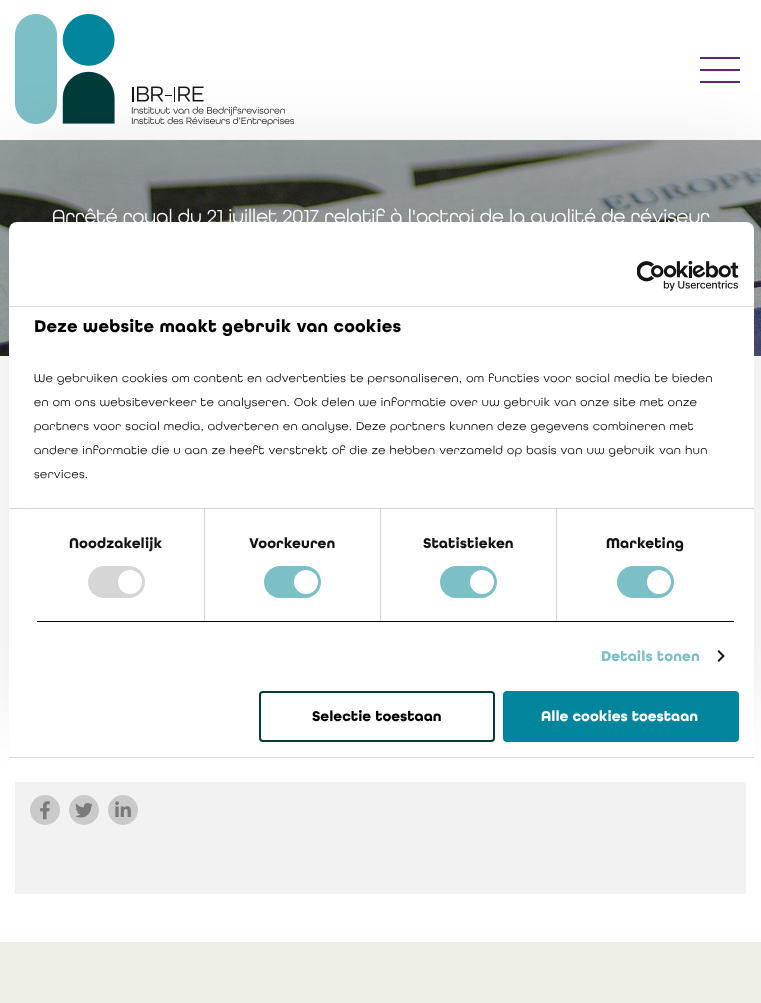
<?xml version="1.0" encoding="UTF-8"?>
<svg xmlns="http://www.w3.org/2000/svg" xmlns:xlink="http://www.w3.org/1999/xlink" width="761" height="1003">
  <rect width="100%" height="100%" fill="#ffffff" />
  <image x="15" y="14" width="279" height="112" xlink:href="image1.png" />
  <rect x="700" y="57" width="40" height="2" fill="#5e2777" />
  <rect x="700" y="69" width="40" height="2" fill="#5e2777" />
  <rect x="700" y="81" width="40" height="2" fill="#5e2777" />
  <image x="0" y="140" width="761" height="216" xlink:href="image2.png" />
  <rect x="15" y="781" width="731" height="113" fill="#f2f2f2" />
  <circle cx="45" cy="810" r="15" fill="#cacaca" />
  <image x="40" y="801" width="10" height="19" xlink:href="image4.png" />
  <circle cx="84" cy="810" r="15" fill="#cacaca" />
  <image x="75" y="803" width="18" height="15" xlink:href="image5.png" />
  <circle cx="123" cy="810" r="15" fill="#cacaca" />
  <image x="115" y="801" width="16" height="16" xlink:href="image6.png" />
  <rect x="9" y="150" width="745" height="560" rx="8" fill="#000000" fill-opacity="0.1" filter="blur(36px)" />
  <rect x="9" y="222" width="745" height="560" rx="8" fill="#ffffff" />
  <rect x="9" y="306" width="745" height="1" fill="#d6d6d6" />
  <image x="637" y="261" width="102" height="30" xlink:href="image3.png" />
  <rect x="9" y="508" width="745" height="1" fill="#d6d6d6" />
  <rect x="37" y="621" width="697" height="1" fill="#000000" />
  <rect x="28" y="508" width="1" height="1" fill="#e5e5e5" />
  <rect x="204" y="509" width="1" height="112" fill="#d6d6d6" />
  <rect x="88" y="566" width="57" height="32" rx="16" fill="#d6d6d6" />
  <circle cx="130" cy="582" r="12" fill="#ffffff" />
  <rect x="380" y="509" width="1" height="112" fill="#d6d6d6" />
  <rect x="264" y="566" width="57" height="32" rx="16" fill="#7dbfc6" />
  <circle cx="306" cy="582" r="12" fill="#ffffff" />
  <rect x="556" y="509" width="1" height="112" fill="#d6d6d6" />
  <rect x="440" y="566" width="57" height="32" rx="16" fill="#7dbfc6" />
  <circle cx="482" cy="582" r="12" fill="#ffffff" />
  <rect x="617" y="566" width="57" height="32" rx="16" fill="#7dbfc6" />
  <circle cx="659" cy="582" r="12" fill="#ffffff" />
  <path d="M 719 650 l 5.5 6 l -1 1.5 l -6 -6 z" fill="#141414" />
  <path d="M 723.5 654.5 l 1 1.5 l -5.5 6 l -1.5 -1.5 z" fill="#141414" />
  <rect x="9" y="757" width="745" height="1" fill="#d6d6d6" />
  <rect x="260" y="692" width="234" height="49" rx="3" fill="none" stroke="#003c3a" stroke-width="2" />
  <rect x="504" y="692" width="234" height="49" rx="3" fill="#00859c" stroke="#00859c" stroke-width="2" />
  <rect y="942" width="761" height="61" fill="#eeefe5" />
  <text x="52" y="223" style="font-family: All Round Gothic; font-size: 20px; fill: #ffffff">Arrêté royal du 21 juillet 2017 relatif à l'octroi de la qualité de réviseur</text>
  <text x="34" y="332" style="font-family: All Round Gothic; font-size: 18px; font-weight: bold; letter-spacing: 0.25px; fill: #000000">Deze website maakt gebruik van cookies</text>
  <text x="34" y="382" style="font-family: All Round Gothic; font-size: 12px; letter-spacing: 0.5px; fill: #000000">We gebruiken cookies om content en advertenties te personaliseren, om functies voor social media te bieden</text>
  <text x="34" y="406" style="font-family: All Round Gothic; font-size: 12px; letter-spacing: 0.5px; fill: #000000">en om ons websiteverkeer te analyseren. Ook delen we informatie over uw gebruik van onze site met onze</text>
  <text x="34" y="430" style="font-family: All Round Gothic; font-size: 12px; letter-spacing: 0.5px; fill: #000000">partners voor social media, adverteren en analyse. Deze partners kunnen deze gegevens combineren met</text>
  <text x="34" y="454" style="font-family: All Round Gothic; font-size: 12px; letter-spacing: 0.5px; fill: #000000">andere informatie die u aan ze heeft verstrekt of die ze hebben verzameld op basis van uw gebruik van hun</text>
  <text x="34" y="478" style="font-family: All Round Gothic; font-size: 12px; letter-spacing: 0.5px; fill: #000000">services.</text>
  <text x="69" y="548" style="font-family: All Round Gothic; font-size: 15px; font-weight: bold; letter-spacing: 0.1px; fill: #141414">Noodzakelijk</text>
  <text x="249" y="548" style="font-family: All Round Gothic; font-size: 15px; font-weight: bold; letter-spacing: 0.1px; fill: #141414">Voorkeuren</text>
  <text x="423" y="548" style="font-family: All Round Gothic; font-size: 15px; font-weight: bold; letter-spacing: 0.1px; fill: #141414">Statistieken</text>
  <text x="606" y="548" style="font-family: All Round Gothic; font-size: 15px; font-weight: bold; letter-spacing: 0.1px; fill: #141414">Marketing</text>
  <text x="601" y="661" style="font-family: All Round Gothic; font-size: 15px; font-weight: bold; letter-spacing: 0.1px; fill: #7dbfc6">Details tonen</text>
  <text x="312" y="721" style="font-family: All Round Gothic; font-size: 15px; font-weight: bold; fill: #000000">Selectie toestaan</text>
  <text x="541" y="721" style="font-family: All Round Gothic; font-size: 15px; font-weight: bold; fill: #ffffff">Alle cookies toestaan</text>
</svg>
